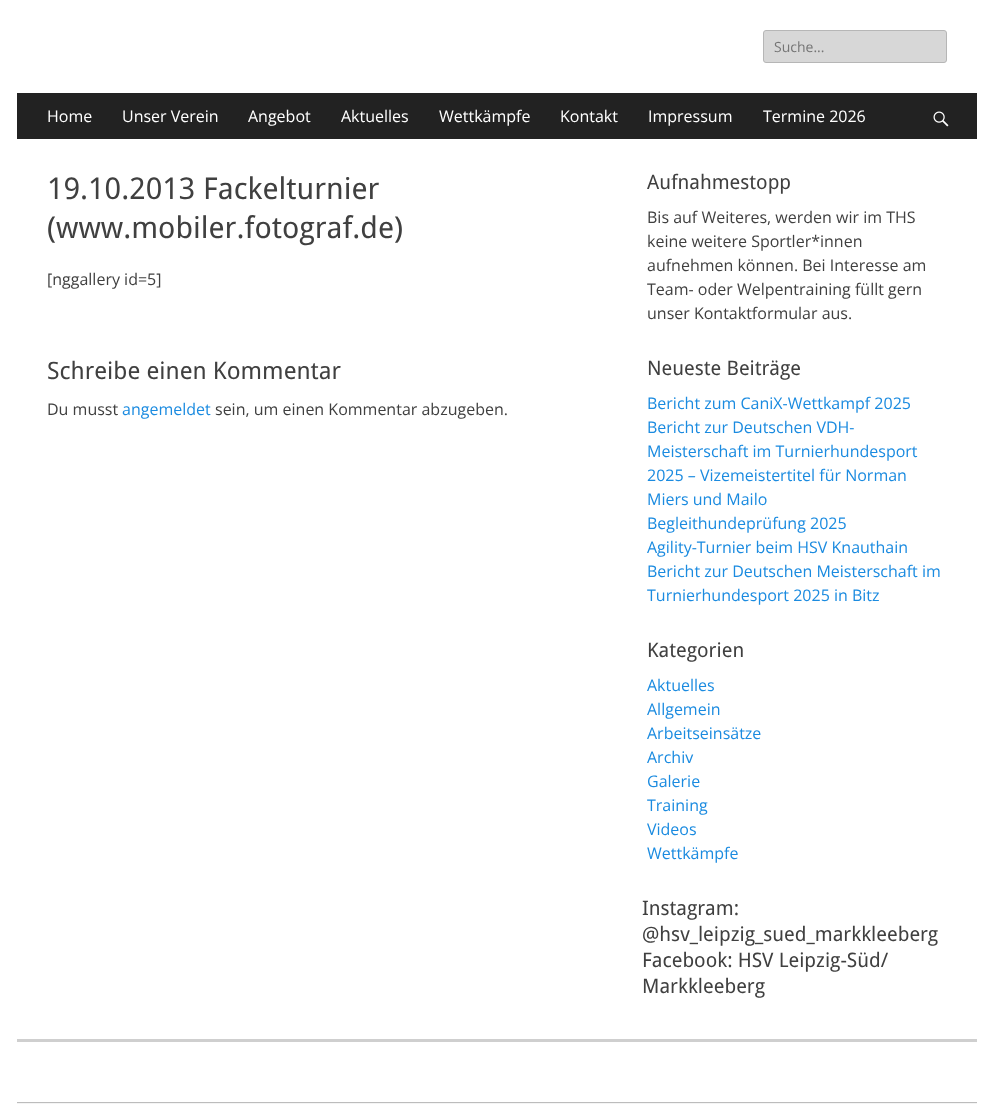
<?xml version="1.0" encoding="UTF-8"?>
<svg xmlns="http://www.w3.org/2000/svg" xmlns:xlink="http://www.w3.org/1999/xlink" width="993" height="1108">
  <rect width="100%" height="100%" fill="#ffffff" />
  <rect x="763.5" y="30.5" width="183" height="32" rx="2.5" fill="#d7d7d7" stroke="#b6b6b6" />
  <rect x="17" y="93" width="960" height="46" fill="#222222" />
  <image x="933" y="111" width="16" height="16" xlink:href="image1.png" />
  <rect x="17" y="1039" width="960" height="3" fill="#cfcfcf" />
  <rect x="17" y="1102" width="960" height="1" fill="#bcbcbc" />
  <rect x="17" y="1103" width="960" height="1" fill="#f4f4f4" />
  <text x="774" y="52" style="font-family: Open Sans; font-size: 14px; fill: #757575">Suche...</text>
  <text x="47" y="122" style="font-family: Open Sans; font-size: 16px; fill: #ffffff">Home</text>
  <text x="122" y="122" style="font-family: Open Sans; font-size: 16px; fill: #ffffff">Unser Verein</text>
  <text x="248" y="122" style="font-family: Open Sans; font-size: 16px; fill: #ffffff">Angebot</text>
  <text x="341" y="122" style="font-family: Open Sans; font-size: 16px; fill: #ffffff">Aktuelles</text>
  <text x="439" y="122" style="font-family: Open Sans; font-size: 16px; fill: #ffffff">Wettkämpfe</text>
  <text x="560" y="122" style="font-family: Open Sans; font-size: 16px; fill: #ffffff">Kontakt</text>
  <text x="648" y="122" style="font-family: Open Sans; font-size: 16px; fill: #ffffff">Impressum</text>
  <text x="763" y="122" style="font-family: Open Sans; font-size: 16px; fill: #ffffff">Termine 2026</text>
  <text x="47" y="199" style="font-family: Droid Sans; font-size: 30px; fill: #404040">19.10.2013 Fackelturnier</text>
  <text x="47" y="238" style="font-family: Droid Sans; font-size: 30px; fill: #404040">(www.mobiler.fotograf.de)</text>
  <text x="47" y="285" style="font-family: Open Sans; font-size: 16px; fill: #404040">[nggallery id=5]</text>
  <text x="47" y="379" style="font-family: Droid Sans; font-size: 24px; fill: #404040">Schreibe einen Kommentar</text>
  <text x="47" y="415" style="font-family: Open Sans; font-size: 16px; fill: #404040">Du musst</text>
  <text x="122" y="415" style="font-family: Open Sans; font-size: 16px; fill: #1b8be0">angemeldet</text>
  <text x="215" y="415" style="font-family: Open Sans; font-size: 16px; fill: #404040">sein, um einen Kommentar abzugeben.</text>
  <text x="647" y="189" style="font-family: Droid Sans; font-size: 20px; fill: #404040">Aufnahmestopp</text>
  <text x="647" y="223" style="font-family: Open Sans; font-size: 16px; fill: #404040">Bis auf Weiteres, werden wir im THS</text>
  <text x="647" y="247" style="font-family: Open Sans; font-size: 16px; fill: #404040">keine weitere Sportler*innen</text>
  <text x="647" y="271" style="font-family: Open Sans; font-size: 16px; fill: #404040">aufnehmen können. Bei Interesse am</text>
  <text x="647" y="295" style="font-family: Open Sans; font-size: 16px; fill: #404040">Team- oder Welpentraining füllt gern</text>
  <text x="647" y="319" style="font-family: Open Sans; font-size: 16px; fill: #404040">unser Kontaktformular aus.</text>
  <text x="647" y="375" style="font-family: Droid Sans; font-size: 20px; fill: #404040">Neueste Beiträge</text>
  <text x="647" y="409" style="font-family: Open Sans; font-size: 16px; fill: #1b8be0">Bericht zum CaniX-Wettkampf 2025</text>
  <text x="647" y="433" style="font-family: Open Sans; font-size: 16px; fill: #1b8be0">Bericht zur Deutschen VDH-</text>
  <text x="647" y="457" style="font-family: Open Sans; font-size: 16px; fill: #1b8be0">Meisterschaft im Turnierhundesport</text>
  <text x="647" y="481" style="font-family: Open Sans; font-size: 16px; fill: #1b8be0">2025 – Vizemeistertitel für Norman</text>
  <text x="647" y="505" style="font-family: Open Sans; font-size: 16px; fill: #1b8be0">Miers und Mailo</text>
  <text x="647" y="529" style="font-family: Open Sans; font-size: 16px; fill: #1b8be0">Begleithundeprüfung 2025</text>
  <text x="647" y="553" style="font-family: Open Sans; font-size: 16px; fill: #1b8be0">Agility-Turnier beim HSV Knauthain</text>
  <text x="647" y="577" style="font-family: Open Sans; font-size: 16px; fill: #1b8be0">Bericht zur Deutschen Meisterschaft im</text>
  <text x="647" y="601" style="font-family: Open Sans; font-size: 16px; fill: #1b8be0">Turnierhundesport 2025 in Bitz</text>
  <text x="647" y="657" style="font-family: Droid Sans; font-size: 20px; fill: #404040">Kategorien</text>
  <text x="647" y="691" style="font-family: Open Sans; font-size: 16px; fill: #1b8be0">Aktuelles</text>
  <text x="647" y="715" style="font-family: Open Sans; font-size: 16px; fill: #1b8be0">Allgemein</text>
  <text x="647" y="739" style="font-family: Open Sans; font-size: 16px; fill: #1b8be0">Arbeitseinsätze</text>
  <text x="647" y="763" style="font-family: Open Sans; font-size: 16px; fill: #1b8be0">Archiv</text>
  <text x="647" y="787" style="font-family: Open Sans; font-size: 16px; fill: #1b8be0">Galerie</text>
  <text x="647" y="811" style="font-family: Open Sans; font-size: 16px; fill: #1b8be0">Training</text>
  <text x="647" y="835" style="font-family: Open Sans; font-size: 16px; fill: #1b8be0">Videos</text>
  <text x="647" y="859" style="font-family: Open Sans; font-size: 16px; fill: #1b8be0">Wettkämpfe</text>
  <text x="642" y="915" style="font-family: Droid Sans; font-size: 20px; fill: #404040">Instagram:</text>
  <text x="642" y="941" style="font-family: Droid Sans; font-size: 20px; fill: #404040">@hsv_leipzig_sued_markkleeberg</text>
  <text x="642" y="967" style="font-family: Droid Sans; font-size: 20px; fill: #404040">Facebook: HSV Leipzig-Süd/</text>
  <text x="642" y="993" style="font-family: Droid Sans; font-size: 20px; fill: #404040">Markkleeberg</text>
</svg>
